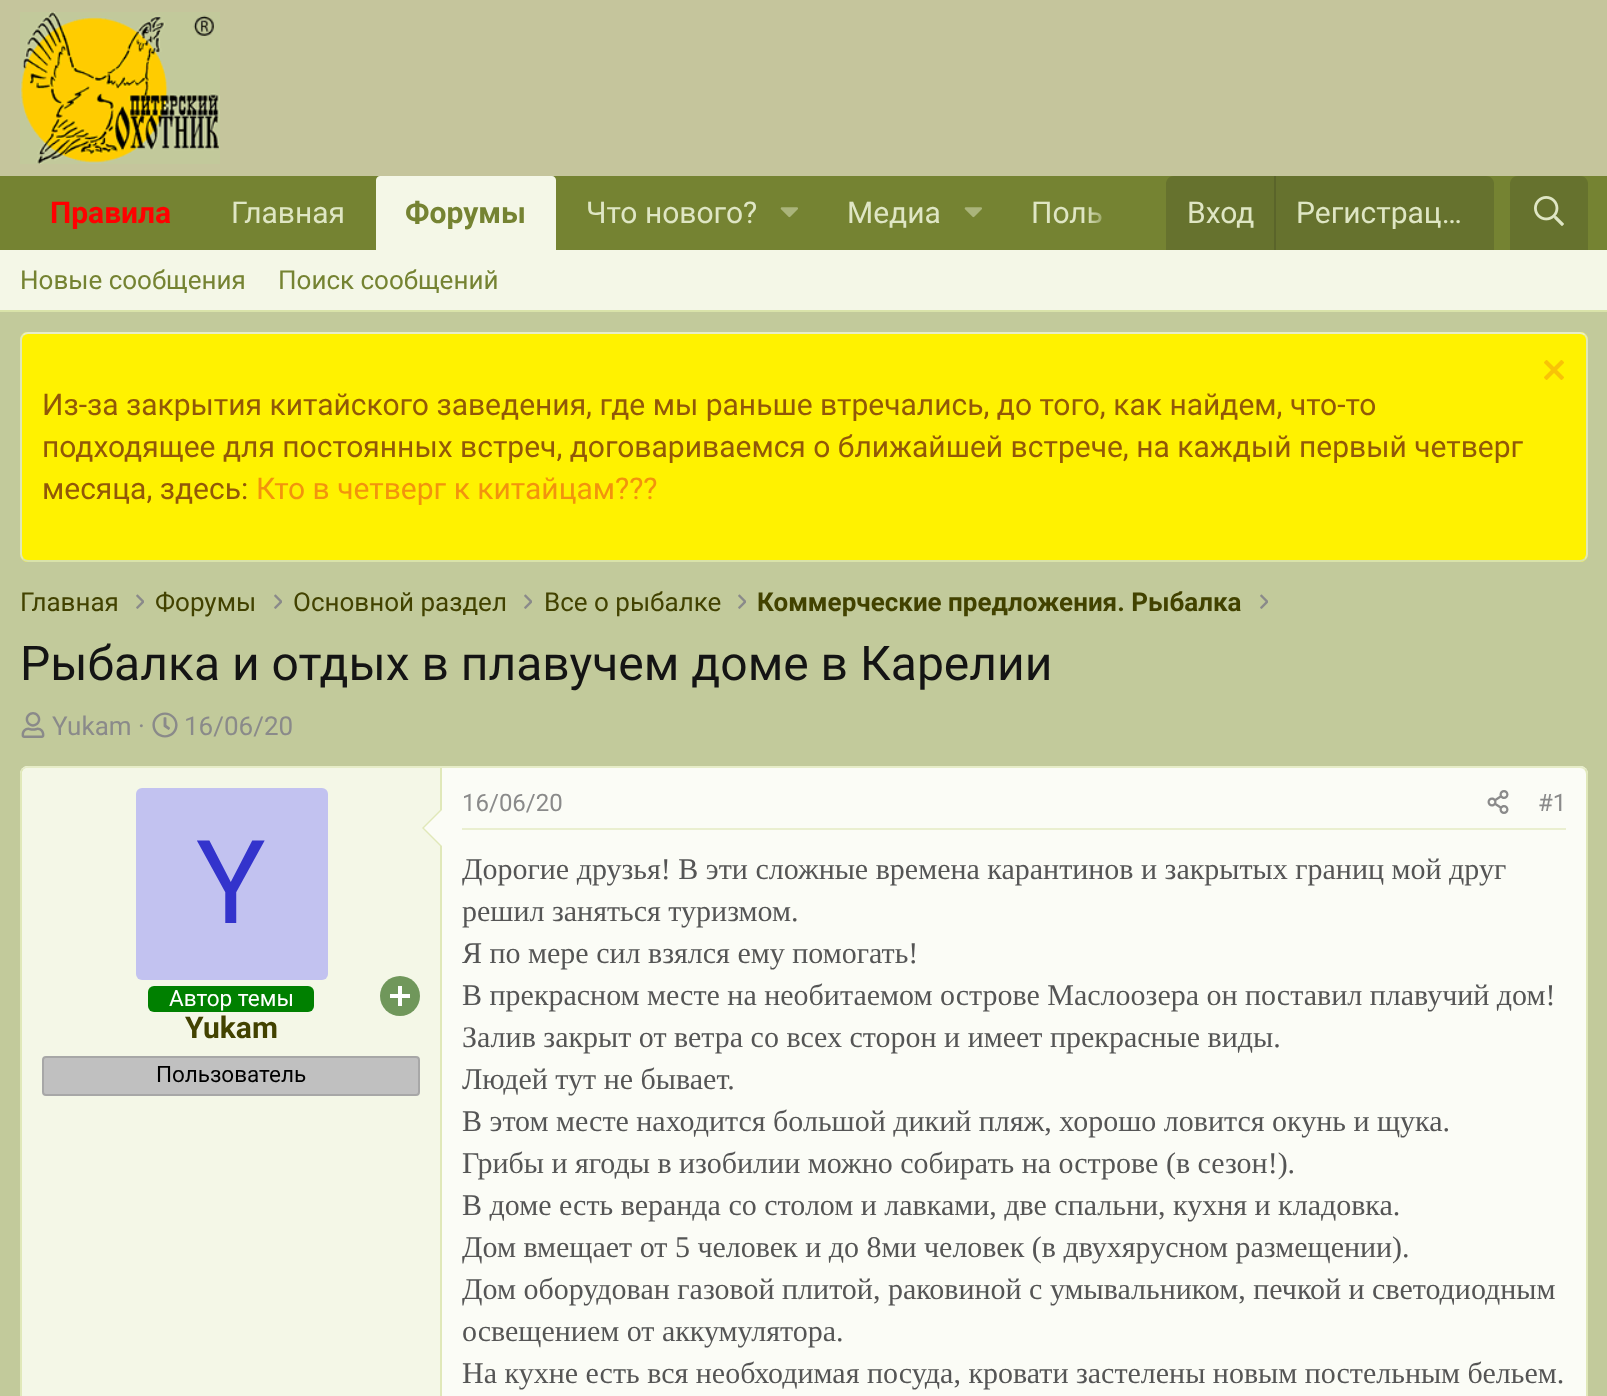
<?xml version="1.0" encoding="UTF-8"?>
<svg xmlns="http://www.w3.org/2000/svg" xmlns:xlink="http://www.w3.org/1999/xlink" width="1607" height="1396">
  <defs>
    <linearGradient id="g1" gradientUnits="userSpaceOnUse" x1="1086" y1="213" x2="1166" y2="213"><stop offset="0" stop-color="#758332" stop-opacity="0" /><stop offset="0.33" stop-color="#758332" /></linearGradient>
  </defs>
  <rect width="100%" height="100%" fill="#c2ca9b" />
  <rect width="1607" height="176" fill="#c5c59c" />
  <image x="20" y="12" width="200" height="152" xlink:href="image1.png" />
  <rect y="176" width="1607" height="74" fill="#758332" />
  <path d="M 380 176 h 172 c 2 0 4 2 4 4 v 70 h -180 v -70 c 0 -2 2 -4 4 -4 z" fill="#f4f7e7" />
  <image x="780" y="207" width="18" height="11" xlink:href="image2.png" />
  <image x="964" y="207" width="18" height="11" xlink:href="image2.png" />
  <path d="M 1174 176 h 312 c 4.5 0 8 3.5 8 8 v 66 h -328 v -66 c 0 -4.5 3.5 -8 8 -8 z" fill="#66722e" />
  <rect x="1274" y="176" width="2" height="74" fill="#5a642a" />
  <path d="M 1518 176 h 62 c 4.5 0 8 3.5 8 8 v 66 h -78 v -66 c 0 -4.5 3.5 -8 8 -8 z" fill="#66722e" />
  <image x="1534" y="196" width="30" height="30" xlink:href="image3.png" />
  <rect y="250" width="1607" height="60" fill="#f4f7e7" />
  <rect y="310" width="1607" height="2" fill="#d9e3a9" />
  <rect x="20" y="332" width="1568" height="230" rx="8" fill="#fff200" />
  <path d="M 23 335 c 1.5 -1.5 3 -2 5 -2 h 1552 c 2 0 3.5 0.5 5 2" fill="none" stroke="#e7edc8" stroke-width="2" />
  <path d="M 1585 335 c 1.5 1.5 2 3 2 5 v 214 c 0 2 -0.5 3.5 -2 5" fill="none" stroke="#e0e8b9" stroke-width="2" />
  <path d="M 1585 559 c -1.5 1.5 -3 2 -5 2 h -1552 c -2 0 -3.5 -0.5 -5 -2" fill="none" stroke="#d9e3a9" stroke-width="2" />
  <path d="M 23 559 c -1.5 -1.5 -2 -3 -2 -5 v -214 c 0 -2 0.5 -3.5 2 -5" fill="none" stroke="#e0e8b9" stroke-width="2" />
  <image x="1544" y="360" width="20" height="20" xlink:href="image4.png" />
  <image x="136" y="594" width="8" height="15" xlink:href="image5.png" />
  <image x="274" y="594" width="8" height="15" xlink:href="image5.png" />
  <image x="524" y="594" width="8" height="15" xlink:href="image5.png" />
  <image x="738" y="594" width="8" height="15" xlink:href="image5.png" />
  <image x="1260" y="594" width="8" height="15" xlink:href="image5.png" />
  <image x="21" y="712" width="24" height="26" xlink:href="image6.png" />
  <image x="152" y="712" width="26" height="26" xlink:href="image7.png" />
  <rect x="20" y="766" width="1568" height="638" rx="8" fill="#fbfcf6" />
  <path d="M 23 769 c 1.5 -1.5 3 -2 5 -2 h 1552 c 2 0 3.5 0.5 5 2" fill="none" stroke="#e7edc8" stroke-width="2" />
  <path d="M 1585 769 c 1.5 1.5 2 3 2 5 v 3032 c 0 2 -0.5 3.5 -2 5" fill="none" stroke="#e0e8b9" stroke-width="2" />
  <path d="M 23 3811 c -1.5 -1.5 -2 -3 -2 -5 v -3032 c 0 -2 0.5 -3.5 2 -5" fill="none" stroke="#e0e8b9" stroke-width="2" />
  <path d="M 28 768 h 414 v 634 h -414 c -3.5 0 -6 -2.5 -6 -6 v -622 c 0 -3.5 2.5 -6 6 -6 z" fill="#f4f7e7" />
  <rect x="440" y="768" width="2" height="628" fill="#e0e8b9" />
  <path d="M 442 808 v 40 l -20 -20 z" fill="#e0e8b9" />
  <path d="M 442 810 v 36 l -18 -18 z" fill="#fbfcf6" />
  <rect x="136" y="788" width="192" height="192" rx="6" fill="#c2c2f0" />
  <rect x="148" y="986" width="166" height="26" rx="6" fill="#008000" />
  <circle cx="400" cy="996" r="20" fill="#70975b" />
  <rect x="398" y="986" width="4" height="20" fill="#ffffff" />
  <rect x="390" y="994" width="20" height="4" fill="#ffffff" />
  <rect x="43" y="1057" width="376" height="38" rx="3" fill="#c0c0c0" stroke="#a7a7a7" stroke-width="2" />
  <rect x="462" y="828" width="1104" height="2" fill="#eaefd0" />
  <image x="1487" y="790" width="22" height="24" xlink:href="image8.png" />
  <text x="50" y="223" style="font-family: Roboto; font-size: 30px; font-weight: bold; fill: #ff0000">Правила</text>
  <text x="231" y="223" style="font-family: Roboto; font-size: 30px; fill: #dfe6c4">Главная</text>
  <text x="405" y="223" style="font-family: Roboto; font-size: 30px; font-weight: bold; fill: #758332">Форумы</text>
  <text x="586" y="223" style="font-family: Roboto; font-size: 30px; fill: #dfe6c4">Что нового?</text>
  <text x="847" y="223" style="font-family: Roboto; font-size: 30px; fill: #dfe6c4">Медиа</text>
  <text x="1031" y="223" style="font-family: Roboto; font-size: 30px; fill: #dfe6c4">Поль</text>
  <rect x="1088" y="207" width="14" height="16" fill="url(#g1)" />
  <text x="1187" y="223" style="font-family: Roboto; font-size: 30px; fill: #dfe6c4">Вход</text>
  <text x="1296" y="223" style="font-family: Roboto; font-size: 30px; fill: #dfe6c4">Регистрац…</text>
  <text x="20" y="289" style="font-family: Roboto; font-size: 26px; fill: #758332">Новые сообщения</text>
  <text x="278" y="289" style="font-family: Roboto; font-size: 26px; fill: #758332">Поиск сообщений</text>
  <text x="42" y="415" style="font-family: Roboto; font-size: 30px; fill: #915808">Из-за закрытия китайского заведения, где мы раньше втречались, до того, как найдем, что-то</text>
  <text x="42" y="457" style="font-family: Roboto; font-size: 30px; fill: #915808">подходящее для постоянных встреч, договариваемся о ближайшей встрече, на каждый первый четверг</text>
  <text x="42" y="499" style="font-family: Roboto; font-size: 30px; fill: #915808">месяца, здесь:</text>
  <text x="256" y="499" style="font-family: Roboto; font-size: 30px; fill: #f2930d">Кто в четверг к китайцам???</text>
  <text x="20" y="611" style="font-family: Roboto; font-size: 26px; fill: #424200">Главная</text>
  <text x="155" y="611" style="font-family: Roboto; font-size: 26px; fill: #424200">Форумы</text>
  <text x="293" y="611" style="font-family: Roboto; font-size: 26px; fill: #424200">Основной раздел</text>
  <text x="544" y="611" style="font-family: Roboto; font-size: 26px; fill: #424200">Все о рыбалке</text>
  <text x="757" y="611" style="font-family: Roboto; font-size: 26px; font-weight: bold; fill: #424200">Коммерческие предложения. Рыбалка</text>
  <text x="20" y="680" style="font-family: Roboto; font-size: 48px; fill: #141414">Рыбалка и отдых в плавучем доме в Карелии</text>
  <text x="52" y="735" style="font-family: Roboto; font-size: 26px; fill: #8a8a8a">Yukam ·</text>
  <text x="184" y="735" style="font-family: Roboto; font-size: 26px; fill: #8a8a8a">16/06/20</text>
  <text x="196" y="923" style="font-family: Roboto; font-size: 116px; fill: #3333cc">Y</text>
  <text x="169" y="1006" style="font-family: Roboto; font-size: 22.5px; fill: #ffffff">Автор темы</text>
  <text x="185" y="1038" style="font-family: Roboto; font-size: 30px; font-weight: bold; fill: #424200">Yukam</text>
  <text x="156" y="1082" style="font-family: Roboto; font-size: 22.5px; fill: #000000">Пользователь</text>
  <text x="462" y="811" style="font-family: Roboto; font-size: 24px; fill: #8a8a8a">16/06/20</text>
  <text x="1538" y="811" style="font-family: Roboto; font-size: 24px; fill: #8a8a8a">#1</text>
  <text x="462" y="879" style="font-family: Liberation Serif; font-size: 30px; fill: #555555">Дорогие друзья! В эти сложные времена карантинов и закрытых границ мой друг</text>
  <text x="462" y="921" style="font-family: Liberation Serif; font-size: 30px; fill: #555555">решил заняться туризмом.</text>
  <text x="462" y="963" style="font-family: Liberation Serif; font-size: 30px; fill: #555555">Я по мере сил взялся ему помогать!</text>
  <text x="462" y="1005" style="font-family: Liberation Serif; font-size: 30px; fill: #555555">В прекрасном месте на необитаемом острове Маслоозера он поставил плавучий дом!</text>
  <text x="462" y="1047" style="font-family: Liberation Serif; font-size: 30px; fill: #555555">Залив закрыт от ветра со всех сторон и имеет прекрасные виды.</text>
  <text x="462" y="1089" style="font-family: Liberation Serif; font-size: 30px; fill: #555555">Людей тут не бывает.</text>
  <text x="462" y="1131" style="font-family: Liberation Serif; font-size: 30px; fill: #555555">В этом месте находится большой дикий пляж, хорошо ловится окунь и щука.</text>
  <text x="462" y="1173" style="font-family: Liberation Serif; font-size: 30px; fill: #555555">Грибы и ягоды в изобилии можно собирать на острове (в сезон!).</text>
  <text x="462" y="1215" style="font-family: Liberation Serif; font-size: 30px; fill: #555555">В доме есть веранда со столом и лавками, две спальни, кухня и кладовка.</text>
  <text x="462" y="1257" style="font-family: Liberation Serif; font-size: 30px; fill: #555555">Дом вмещает от 5 человек и до 8ми человек (в двухярусном размещении).</text>
  <text x="462" y="1299" style="font-family: Liberation Serif; font-size: 30px; fill: #555555">Дом оборудован газовой плитой, раковиной с умывальником, печкой и светодиодным</text>
  <text x="462" y="1341" style="font-family: Liberation Serif; font-size: 30px; fill: #555555">освещением от аккумулятора.</text>
  <text x="462" y="1383" style="font-family: Liberation Serif; font-size: 30px; fill: #555555">На кухне есть вся необходимая посуда, кровати застелены новым постельным бельем.</text>
</svg>
